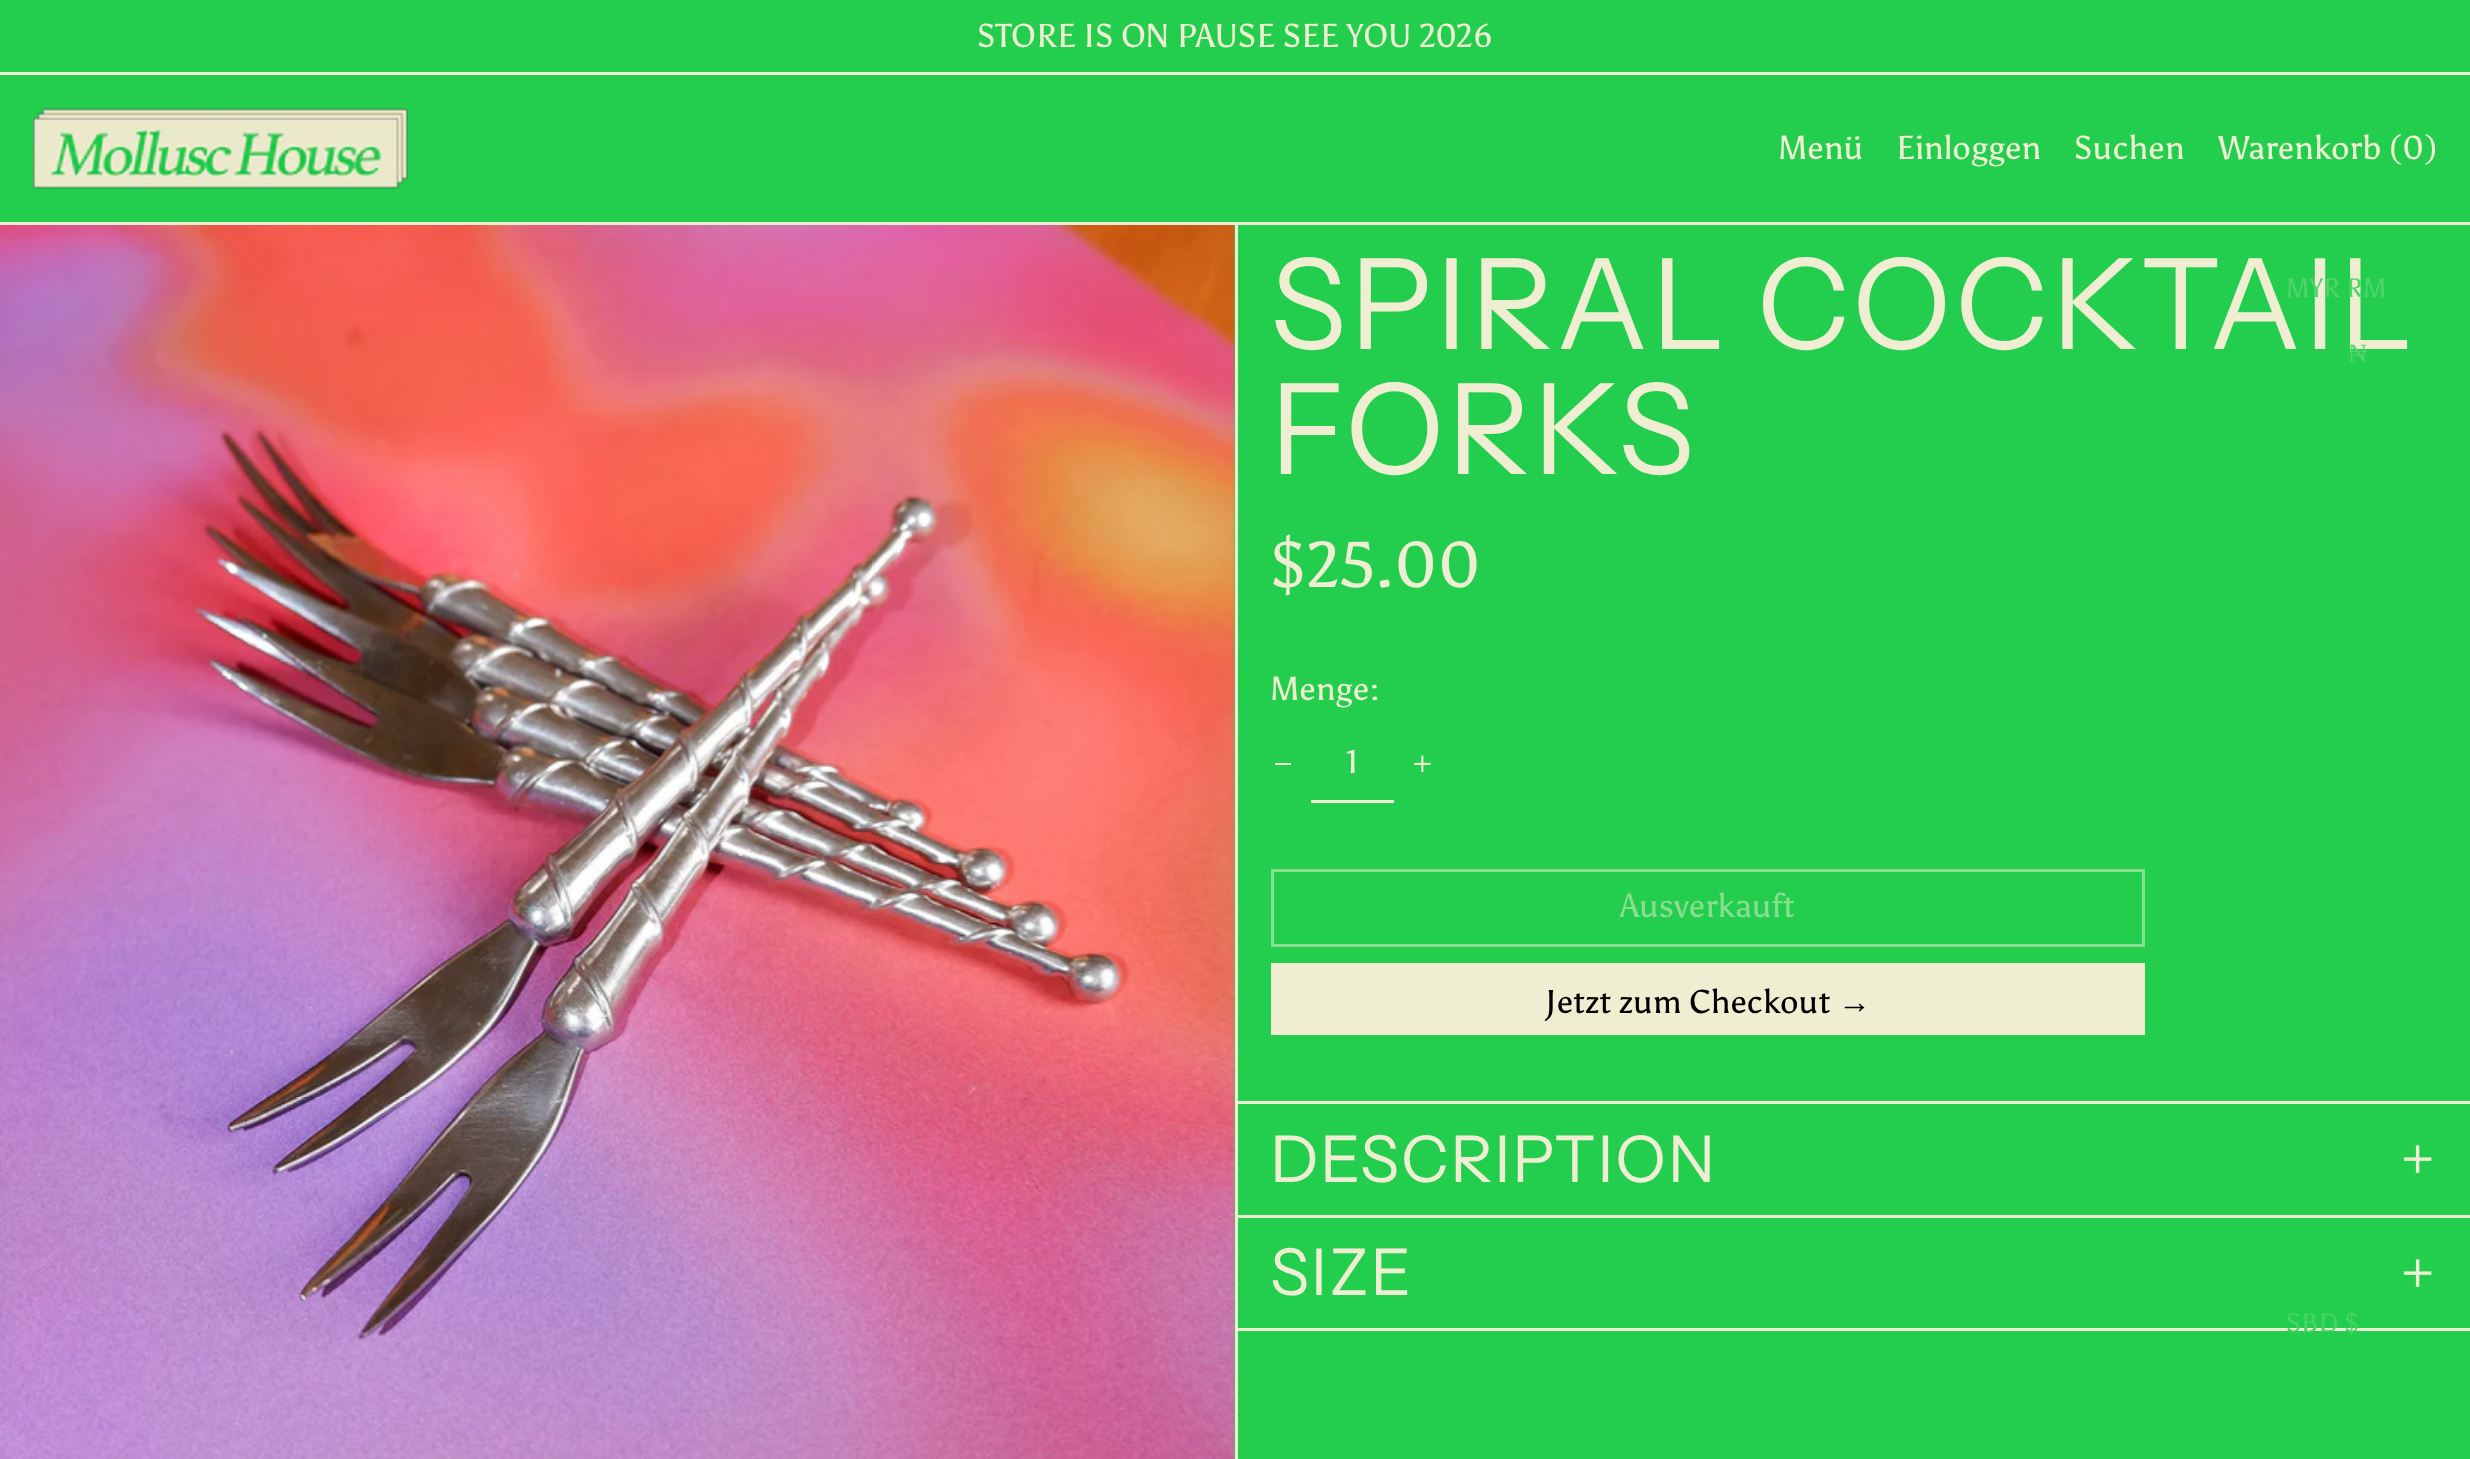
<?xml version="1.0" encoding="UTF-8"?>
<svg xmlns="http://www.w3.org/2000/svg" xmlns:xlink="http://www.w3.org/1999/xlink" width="2470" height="1459">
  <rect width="100%" height="100%" fill="#23ce4e" />
  <rect y="72" width="2470" height="3" fill="#f0eed2" />
  <rect y="222" width="2470" height="3" fill="#f0eed2" />
  <image x="33" y="108" width="375" height="82" xlink:href="image1.png" />
  <rect x="1235" y="225" width="3" height="1234" fill="#f0eed2" />
  <image x="0" y="225" width="1235" height="1234" xlink:href="image2.png" />
  <rect x="1275" y="763" width="16" height="2" fill="#f0eed2" />
  <rect x="1311" y="800" width="83" height="3" fill="#f0eed2" />
  <image x="1414" y="755" width="17" height="18" xlink:href="image3.png" />
  <rect x="1272.5" y="870.5" width="871" height="75" fill="none" stroke="#8ade90" stroke-width="3" />
  <rect x="1271" y="963" width="874" height="72" fill="#f0eed2" />
  <rect x="1238" y="1101" width="1232" height="3" fill="#f0eed2" />
  <image x="2403" y="1145" width="29" height="28" xlink:href="image4.png" />
  <rect x="1238" y="1215" width="1232" height="3" fill="#f0eed2" />
  <rect x="1238" y="1328" width="1232" height="3" fill="#f0eed2" />
  <image x="2403" y="1259" width="29" height="28" xlink:href="image4.png" />
  <text x="977" y="47" style="font-family: Asul; font-size: 33px; fill: #f0eed2">STORE IS ON PAUSE SEE YOU 2026</text>
  <text x="1778" y="159" style="font-family: Asul; font-size: 33px; fill: #f0eed2">Menü</text>
  <text x="1896" y="159" style="font-family: Asul; font-size: 33px; fill: #f0eed2">Einloggen</text>
  <text x="2074" y="159" style="font-family: Asul; font-size: 33px; fill: #f0eed2">Suchen</text>
  <text x="2218" y="159" style="font-family: Asul; font-size: 33px; fill: #f0eed2">Warenkorb (0)</text>
  <text x="1270" y="349" style="font-family: Instrument Sans; font-size: 126px; letter-spacing: 3.1px; fill: #f0eed2">SPIRAL COCKTAIL</text>
  <text x="1270" y="474" style="font-family: Instrument Sans; font-size: 126px; letter-spacing: 3.1px; fill: #f0eed2">FORKS</text>
  <text x="1270" y="587" style="font-family: Asul; font-size: 64.5px; fill: #f0eed2">$25.00</text>
  <text x="1270" y="700" style="font-family: Asul; font-size: 33px; fill: #f0eed2">Menge:</text>
  <text x="1346" y="773" style="font-family: Asul; font-size: 33px; fill: #f0eed2">1</text>
  <text x="1620" y="917" style="font-family: Asul; font-size: 33px; fill: #8ade90">Ausverkauft</text>
  <text x="1545" y="1013" style="font-family: Asul; font-size: 33px; fill: #000000">Jetzt zum Checkout</text>
  <text x="1838" y="1013" style="font-family: Liberation Serif; font-size: 33px; fill: #000000">→</text>
  <text x="1270" y="1182" style="font-family: Instrument Sans; font-size: 64.5px; letter-spacing: 1.6px; fill: #f0eed2">DESCRIPTION</text>
  <text x="1270" y="1295" style="font-family: Instrument Sans; font-size: 64.5px; letter-spacing: 1.6px; fill: #f0eed2">SIZE</text>
  <text x="2286" y="297" style="font-family: Asul; font-size: 26.5px; fill: #50d56b">MYR RM</text>
  <text x="2348" y="362" style="font-family: Liberation Serif; font-size: 26.5px; fill: #50d56b">₦</text>
  <text x="2286" y="1332" style="font-family: Asul; font-size: 26.5px; fill: #47d465">SBD $</text>
</svg>
